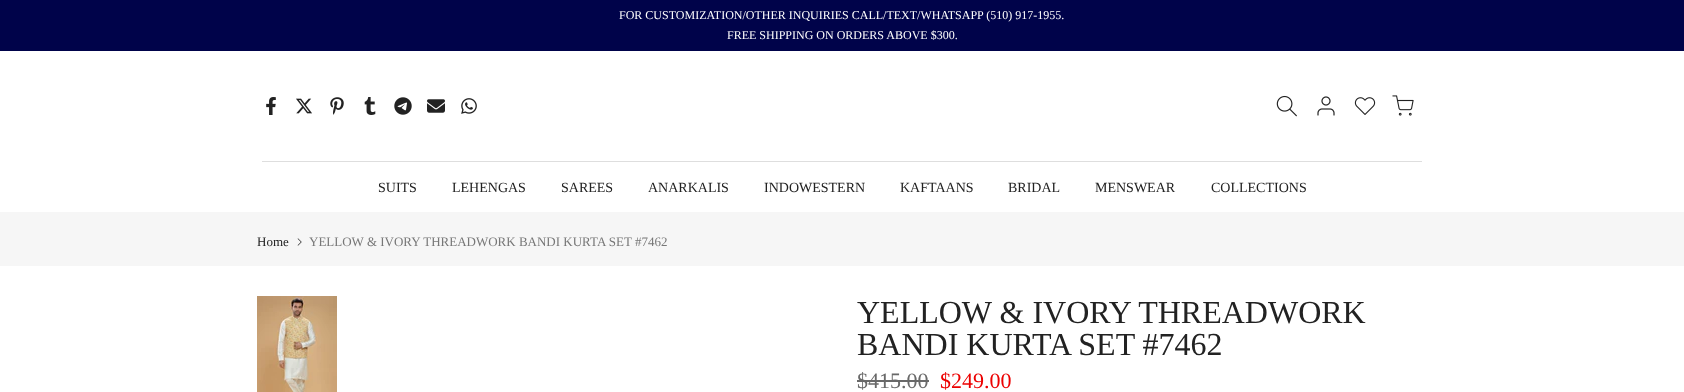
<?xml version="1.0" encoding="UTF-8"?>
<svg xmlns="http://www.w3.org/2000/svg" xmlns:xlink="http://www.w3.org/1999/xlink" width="1684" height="392">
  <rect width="100%" height="100%" fill="#ffffff" />
  <rect width="1684" height="51" fill="#00034a" />
  <rect x="262" y="161" width="1160" height="1" fill="#dedede" />
  <image x="266" y="97" width="10" height="18" xlink:href="image1.png" />
  <image x="296" y="98" width="16" height="16" xlink:href="image2.png" />
  <image x="330" y="97" width="14" height="18" xlink:href="image3.png" />
  <image x="364" y="97" width="12" height="18" xlink:href="image4.png" />
  <image x="394" y="97" width="18" height="18" xlink:href="image5.png" />
  <image x="427" y="99" width="18" height="14" xlink:href="image6.png" />
  <image x="461" y="98" width="16" height="16" xlink:href="image7.png" />
  <image x="1276" y="95" width="21" height="22" xlink:href="image8.png" />
  <image x="1317" y="96" width="18" height="20" xlink:href="image9.png" />
  <image x="1354" y="97" width="22" height="18" xlink:href="image10.png" />
  <image x="1392" y="95" width="22" height="21" xlink:href="image11.png" />
  <rect y="212" width="1684" height="54" fill="#f6f6f6" />
  <image x="297" y="238" width="5" height="8" xlink:href="image12.png" />
  <image x="257" y="296" width="80" height="96" xlink:href="image13.png" />
  <rect x="857" y="380" width="72" height="2" fill="#696969" />
  <text x="619" y="19" style="font-family: Liberation Serif; font-size: 12px; fill: #ffffff">FOR CUSTOMIZATION/OTHER INQUIRIES CALL/TEXT/WHATSAPP (510) 917-1955.</text>
  <text x="727" y="39" style="font-family: Liberation Serif; font-size: 12px; fill: #ffffff">FREE SHIPPING ON ORDERS ABOVE $300.</text>
  <text x="378" y="192" style="font-family: Liberation Serif; font-size: 14px; fill: #222222">SUITS</text>
  <text x="452" y="192" style="font-family: Liberation Serif; font-size: 14px; fill: #222222">LEHENGAS</text>
  <text x="561" y="192" style="font-family: Liberation Serif; font-size: 14px; fill: #222222">SAREES</text>
  <text x="648" y="192" style="font-family: Liberation Serif; font-size: 14px; fill: #222222">ANARKALIS</text>
  <text x="764" y="192" style="font-family: Liberation Serif; font-size: 14px; fill: #222222">INDOWESTERN</text>
  <text x="900" y="192" style="font-family: Liberation Serif; font-size: 14px; fill: #222222">KAFTAANS</text>
  <text x="1008" y="192" style="font-family: Liberation Serif; font-size: 14px; fill: #222222">BRIDAL</text>
  <text x="1095" y="192" style="font-family: Liberation Serif; font-size: 14px; fill: #222222">MENSWEAR</text>
  <text x="1211" y="192" style="font-family: Liberation Serif; font-size: 14px; fill: #222222">COLLECTIONS</text>
  <text x="257" y="246" style="font-family: Liberation Serif; font-size: 13px; fill: #222222">Home</text>
  <text x="309" y="246" style="font-family: Liberation Serif; font-size: 13px; fill: #777777">YELLOW &amp; IVORY THREADWORK BANDI KURTA SET #7462</text>
  <text x="857" y="323" style="font-family: Liberation Serif; font-size: 32px; fill: #222222">YELLOW &amp; IVORY THREADWORK</text>
  <text x="857" y="355" style="font-family: Liberation Serif; font-size: 32px; fill: #222222">BANDI KURTA SET #7462</text>
  <text x="857" y="388" style="font-family: Liberation Serif; font-size: 22px; fill: #696969">$415.00</text>
  <text x="940" y="388" style="font-family: Liberation Serif; font-size: 22px; fill: #ec0101">$249.00</text>
</svg>
